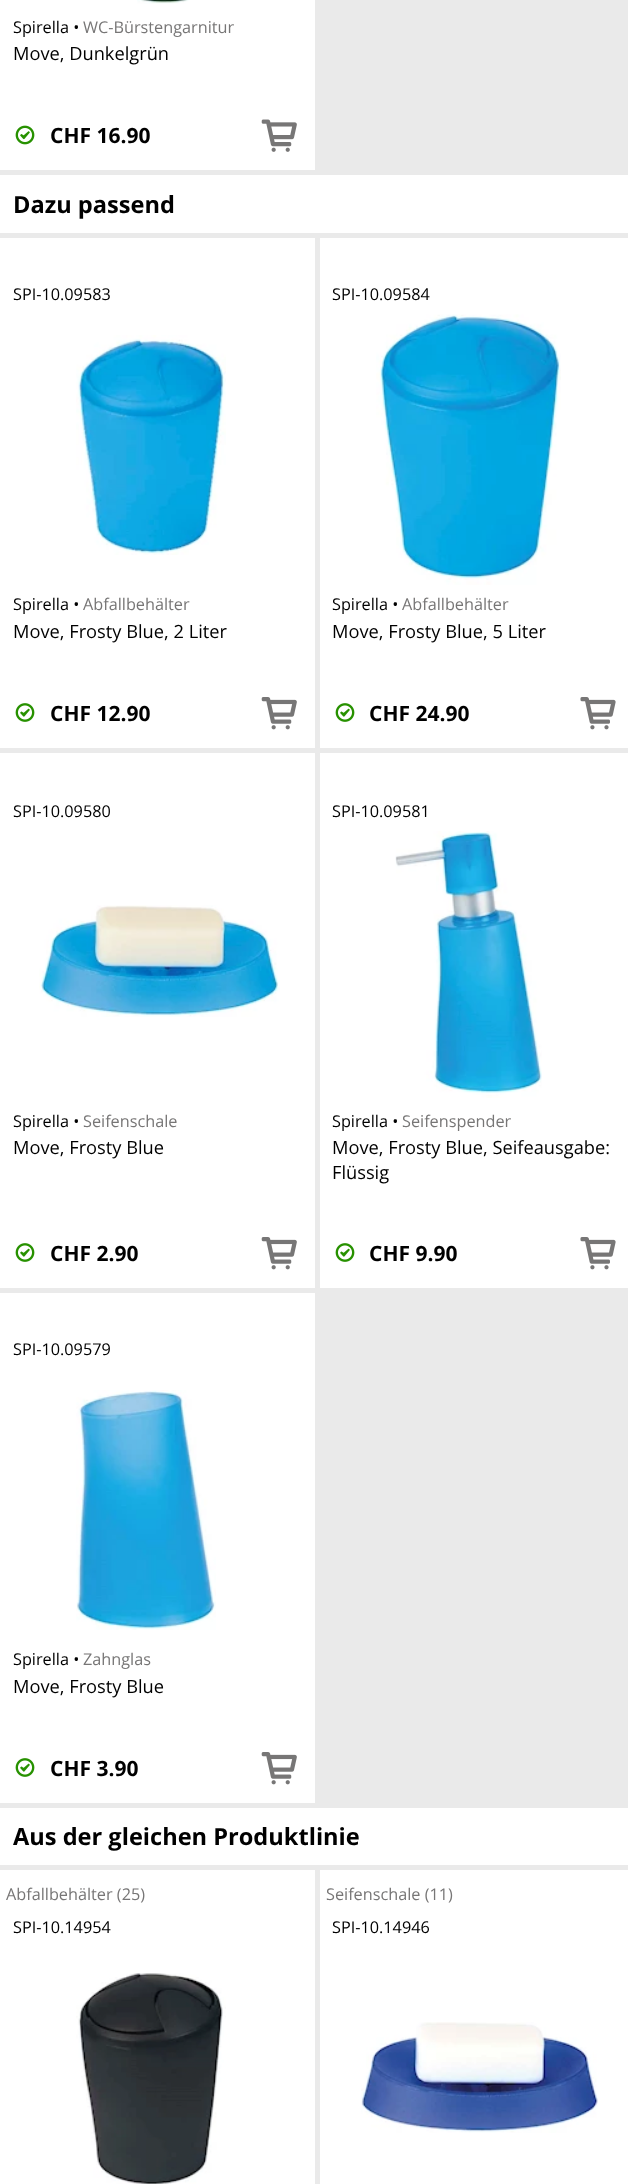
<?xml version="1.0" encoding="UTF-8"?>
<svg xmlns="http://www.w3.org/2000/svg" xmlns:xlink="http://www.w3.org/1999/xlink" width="628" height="2184">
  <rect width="100%" height="100%" fill="#eaeaea" />
  <rect width="315" height="170" fill="#ffffff" />
  <image x="137" y="0" width="52" height="4" xlink:href="image1.png" />
  <image x="15" y="125" width="20" height="20" xlink:href="image2.png" />
  <image x="261" y="119" width="36" height="33" xlink:href="image3.png" />
  <rect y="175" width="628" height="58" fill="#ffffff" />
  <rect y="238" width="315" height="510" fill="#ffffff" />
  <image x="76" y="335" width="150" height="220" xlink:href="image4.png" />
  <image x="15" y="703" width="20" height="19" xlink:href="image5.png" />
  <image x="261" y="697" width="36" height="33" xlink:href="image6.png" />
  <rect x="320" y="238" width="308" height="510" fill="#ffffff" />
  <image x="376" y="314" width="185" height="271" xlink:href="image7.png" />
  <image x="335" y="703" width="20" height="19" xlink:href="image5.png" />
  <image x="580" y="697" width="36" height="33" xlink:href="image8.png" />
  <rect y="753" width="315" height="535" fill="#ffffff" />
  <image x="39" y="905" width="241" height="112" xlink:href="image9.png" />
  <image x="15" y="1243" width="20" height="19" xlink:href="image5.png" />
  <image x="261" y="1237" width="36" height="33" xlink:href="image6.png" />
  <rect x="320" y="753" width="308" height="535" fill="#ffffff" />
  <image x="395" y="831" width="147" height="267" xlink:href="image10.png" />
  <image x="335" y="1243" width="20" height="19" xlink:href="image5.png" />
  <image x="580" y="1237" width="36" height="33" xlink:href="image8.png" />
  <rect y="1293" width="315" height="510" fill="#ffffff" />
  <image x="76" y="1390" width="140" height="240" xlink:href="image11.png" />
  <image x="15" y="1758" width="20" height="19" xlink:href="image5.png" />
  <image x="261" y="1752" width="36" height="33" xlink:href="image6.png" />
  <rect y="1808" width="628" height="57" fill="#ffffff" />
  <rect y="1870" width="315" height="314" fill="#ffffff" />
  <image x="76" y="1973" width="150" height="211" xlink:href="image12.png" />
  <rect x="320" y="1870" width="308" height="314" fill="#ffffff" />
  <image x="361" y="2022" width="237" height="111" xlink:href="image13.png" />
  <text x="13" y="33" style="font-family: Open Sans; font-size: 16.25px; fill: #000000">Spirella •</text>
  <text x="83" y="33" style="font-family: Open Sans; font-size: 16.25px; fill: #777676">WC-Bürstengarnitur</text>
  <text x="13" y="60" style="font-family: Open Sans; font-size: 18.25px; fill: #000000">Move, Dunkelgrün</text>
  <text x="50" y="143" style="font-family: Open Sans; font-size: 21px; font-weight: bold; fill: #000000">CHF 16.90</text>
  <text x="13" y="213" style="font-family: Open Sans; font-size: 23.6px; font-weight: bold; fill: #000000">Dazu passend</text>
  <text x="13" y="300" style="font-family: Open Sans; font-size: 16.25px; fill: #000000">SPI-10.09583</text>
  <text x="13" y="610" style="font-family: Open Sans; font-size: 16.25px; fill: #000000">Spirella •</text>
  <text x="83" y="610" style="font-family: Open Sans; font-size: 16.25px; fill: #777676">Abfallbehälter</text>
  <text x="13" y="638" style="font-family: Open Sans; font-size: 18.25px; fill: #000000">Move, Frosty Blue, 2 Liter</text>
  <text x="50" y="721" style="font-family: Open Sans; font-size: 21px; font-weight: bold; fill: #000000">CHF 12.90</text>
  <text x="332" y="300" style="font-family: Open Sans; font-size: 16.25px; fill: #000000">SPI-10.09584</text>
  <text x="332" y="610" style="font-family: Open Sans; font-size: 16.25px; fill: #000000">Spirella •</text>
  <text x="402" y="610" style="font-family: Open Sans; font-size: 16.25px; fill: #777676">Abfallbehälter</text>
  <text x="332" y="638" style="font-family: Open Sans; font-size: 18.25px; fill: #000000">Move, Frosty Blue, 5 Liter</text>
  <text x="369" y="721" style="font-family: Open Sans; font-size: 21px; font-weight: bold; fill: #000000">CHF 24.90</text>
  <text x="13" y="817" style="font-family: Open Sans; font-size: 16.25px; fill: #000000">SPI-10.09580</text>
  <text x="13" y="1127" style="font-family: Open Sans; font-size: 16.25px; fill: #000000">Spirella •</text>
  <text x="83" y="1127" style="font-family: Open Sans; font-size: 16.25px; fill: #777676">Seifenschale</text>
  <text x="13" y="1154" style="font-family: Open Sans; font-size: 18.25px; fill: #000000">Move, Frosty Blue</text>
  <text x="50" y="1261" style="font-family: Open Sans; font-size: 21px; font-weight: bold; fill: #000000">CHF 2.90</text>
  <text x="332" y="817" style="font-family: Open Sans; font-size: 16.25px; fill: #000000">SPI-10.09581</text>
  <text x="332" y="1127" style="font-family: Open Sans; font-size: 16.25px; fill: #000000">Spirella •</text>
  <text x="402" y="1127" style="font-family: Open Sans; font-size: 16.25px; fill: #777676">Seifenspender</text>
  <text x="332" y="1154" style="font-family: Open Sans; font-size: 18.25px; fill: #000000">Move, Frosty Blue, Seifeausgabe:</text>
  <text x="332" y="1179" style="font-family: Open Sans; font-size: 18.25px; fill: #000000">Flüssig</text>
  <text x="369" y="1261" style="font-family: Open Sans; font-size: 21px; font-weight: bold; fill: #000000">CHF 9.90</text>
  <text x="13" y="1355" style="font-family: Open Sans; font-size: 16.25px; fill: #000000">SPI-10.09579</text>
  <text x="13" y="1665" style="font-family: Open Sans; font-size: 16.25px; fill: #000000">Spirella •</text>
  <text x="83" y="1665" style="font-family: Open Sans; font-size: 16.25px; fill: #777676">Zahnglas</text>
  <text x="13" y="1693" style="font-family: Open Sans; font-size: 18.25px; fill: #000000">Move, Frosty Blue</text>
  <text x="50" y="1776" style="font-family: Open Sans; font-size: 21px; font-weight: bold; fill: #000000">CHF 3.90</text>
  <text x="13" y="1845" style="font-family: Open Sans; font-size: 23.6px; font-weight: bold; fill: #000000">Aus der gleichen Produktlinie</text>
  <text x="6" y="1900" style="font-family: Open Sans; font-size: 16.25px; fill: #777676">Abfallbehälter (25)</text>
  <text x="13" y="1933" style="font-family: Open Sans; font-size: 16.25px; fill: #000000">SPI-10.14954</text>
  <text x="326" y="1900" style="font-family: Open Sans; font-size: 16.25px; fill: #777676">Seifenschale (11)</text>
  <text x="332" y="1933" style="font-family: Open Sans; font-size: 16.25px; fill: #000000">SPI-10.14946</text>
</svg>
